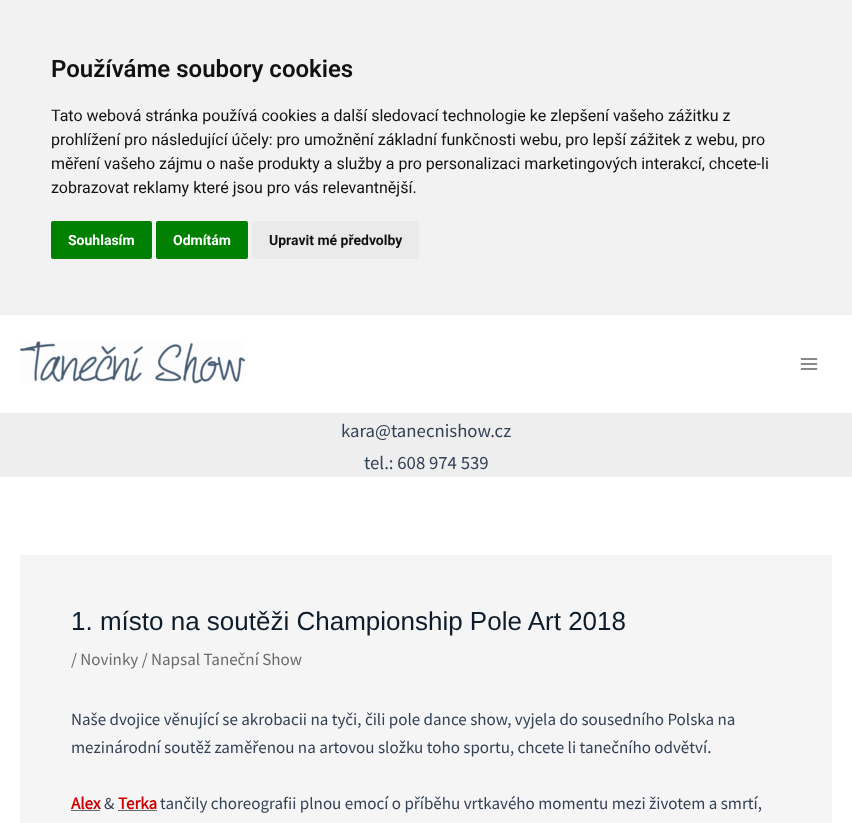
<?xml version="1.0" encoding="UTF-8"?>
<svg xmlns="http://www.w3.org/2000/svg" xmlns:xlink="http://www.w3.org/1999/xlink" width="852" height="823">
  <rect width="100%" height="100%" fill="#ffffff" />
  <rect width="852" height="315" fill="#f2f2f2" />
  <rect x="51" y="221" width="101" height="38" rx="2" fill="#008000" />
  <rect x="156" y="221" width="92" height="38" rx="2" fill="#008000" />
  <rect x="252" y="221" width="167" height="38" rx="2" fill="#eaeaea" />
  <image x="20" y="341" width="225" height="43" xlink:href="image1.png" />
  <image x="800" y="358" width="18" height="12" xlink:href="image2.png" />
  <rect y="413" width="852" height="64" fill="#eeeeee" />
  <rect x="20" y="555" width="812" height="268" fill="#f5f5f5" />
  <rect x="71" y="810" width="29" height="1" fill="#6b6b6b" />
  <rect x="118" y="810" width="39" height="1" fill="#6b6b6b" />
  <text x="51" y="77" style="font-family: Roboto; font-size: 24px; font-weight: 600; fill: #111111">Používáme soubory cookies</text>
  <text x="51" y="121" style="font-family: Roboto; font-size: 16px; fill: #111111">Tato webová stránka používá cookies a další sledovací technologie ke zlepšení vašeho zážitku z</text>
  <text x="51" y="145" style="font-family: Roboto; font-size: 16px; fill: #111111">prohlížení pro následující účely: pro umožnění základní funkčnosti webu, pro lepší zážitek z webu, pro</text>
  <text x="51" y="169" style="font-family: Roboto; font-size: 16px; fill: #111111">měření vašeho zájmu o naše produkty a služby a pro personalizaci marketingových interakcí, chcete-li</text>
  <text x="51" y="193" style="font-family: Roboto; font-size: 16px; fill: #111111">zobrazovat reklamy které jsou pro vás relevantnější.</text>
  <text x="68" y="245" style="font-family: Roboto; font-size: 14px; font-weight: bold; fill: #ffffff">Souhlasím</text>
  <text x="173" y="245" style="font-family: Roboto; font-size: 14px; font-weight: bold; fill: #ffffff">Odmítám</text>
  <text x="269" y="245" style="font-family: Roboto; font-size: 14px; font-weight: bold; fill: #111111">Upravit mé předvolby</text>
  <text x="341" y="437" style="font-family: Source Sans Pro; font-size: 18.75px; fill: #334155">kara@tanecnishow.cz</text>
  <text x="364" y="469" style="font-family: Source Sans Pro; font-size: 18.75px; fill: #334155">tel.: 608 974 539</text>
  <text x="71" y="630" style="font-family: Liberation Sans; font-size: 26px; fill: #0d1b2a">1. místo na soutěži Championship Pole Art 2018</text>
  <text x="71" y="665" style="font-family: Source Sans Pro; font-size: 17px; fill: #6b6b6b">/ Novinky / Napsal Taneční Show</text>
  <text x="71" y="725" style="font-family: Source Sans Pro; font-size: 17px; fill: #334155">Naše dvojice věnující se akrobacii na tyči, čili pole dance show, vyjela do sousedního Polska na</text>
  <text x="71" y="753" style="font-family: Source Sans Pro; font-size: 17px; fill: #334155">mezinárodní soutěž zaměřenou na artovou složku toho sportu, chcete li tanečního odvětví.</text>
  <text x="71" y="809" style="font-family: Source Sans Pro; font-size: 17px; font-weight: bold; fill: #cc0000">Alex</text>
  <text x="104" y="809" style="font-family: Source Sans Pro; font-size: 17px; fill: #334155">&amp;</text>
  <text x="118" y="809" style="font-family: Source Sans Pro; font-size: 17px; font-weight: bold; fill: #cc0000">Terka</text>
  <text x="160" y="809" style="font-family: Source Sans Pro; font-size: 17px; fill: #334155">tančily choreografii plnou emocí o příběhu vrtkavého momentu mezi životem a smrtí,</text>
</svg>
